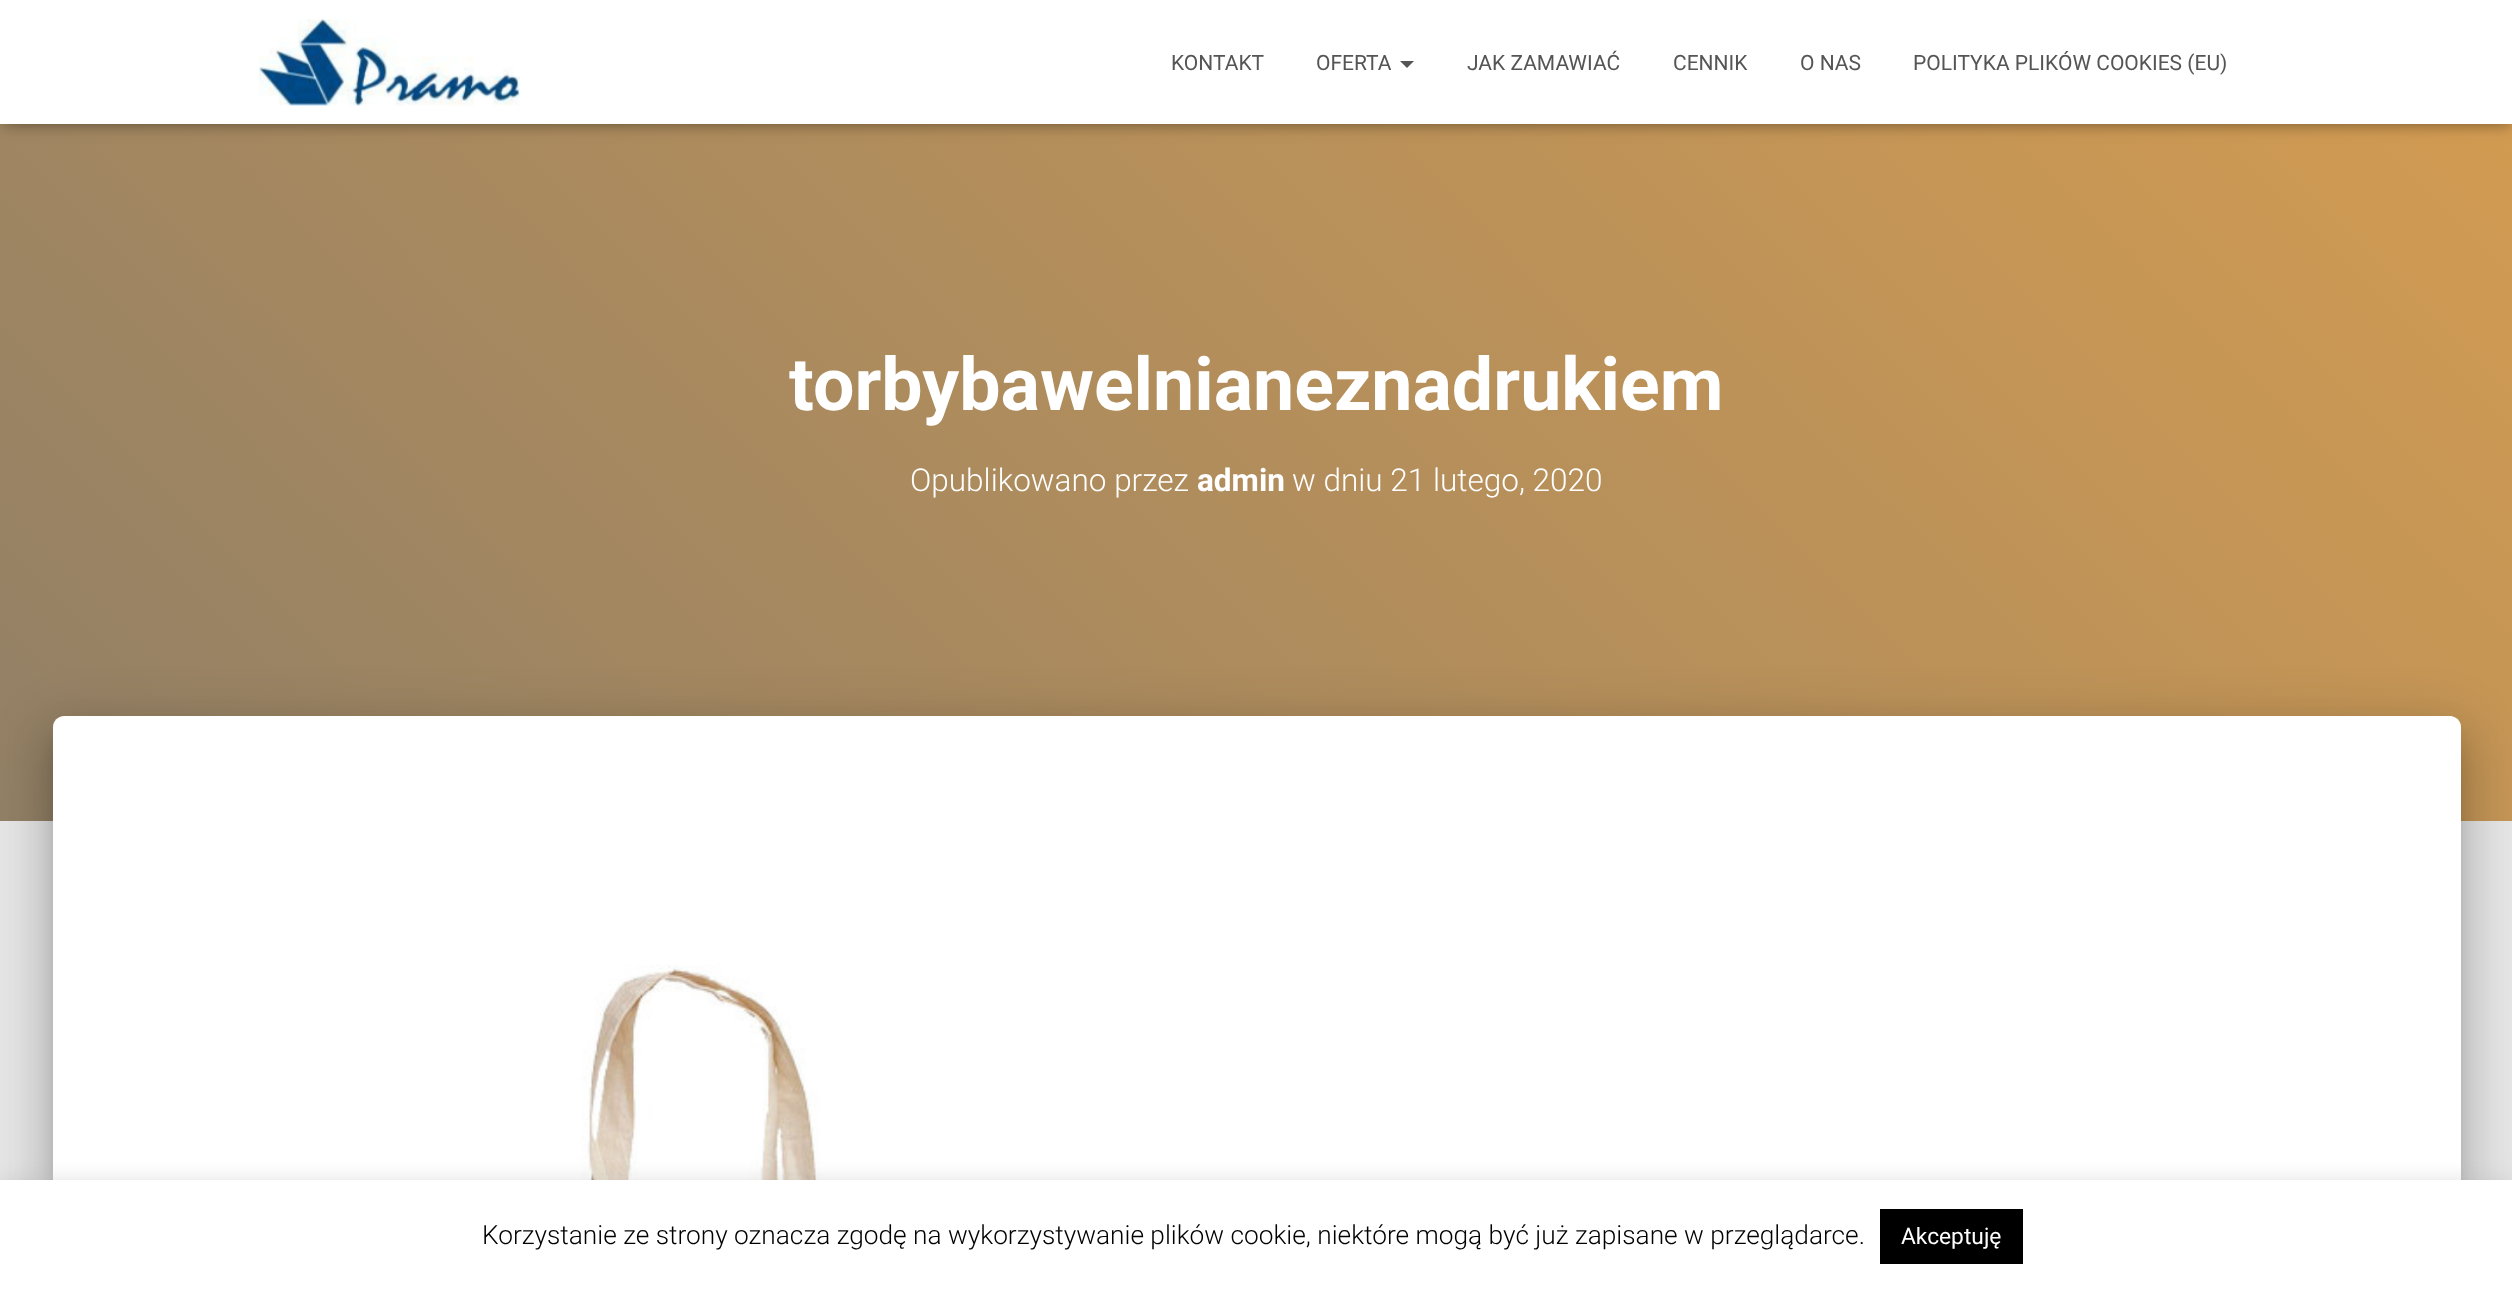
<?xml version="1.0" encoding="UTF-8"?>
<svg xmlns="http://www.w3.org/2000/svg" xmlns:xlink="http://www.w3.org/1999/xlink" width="2512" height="1293">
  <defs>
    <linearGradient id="g1" gradientUnits="userSpaceOnUse" x1="423" y1="1244" x2="2090" y2="-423"><stop offset="0" stop-color="#928066" /><stop offset="1" stop-color="#d49c51" /></linearGradient>
  </defs>
  <rect width="100%" height="100%" fill="#e5e5e5" />
  <rect y="124" width="2512" height="697" fill="url(#g1)" />
  <rect x="4" y="11" width="2506" height="117" fill="#000000" fill-opacity="0.1" filter="blur(4.5px)" />
  <rect y="2" width="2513" height="124" fill="#000000" fill-opacity="0.12" filter="blur(9px)" />
  <rect x="11" y="12" width="2492" height="104" fill="#000000" fill-opacity="0.42" filter="blur(9px)" />
  <rect width="2512" height="124" fill="#ffffff" />
  <image x="259" y="18" width="261" height="88" xlink:href="image1.png" />
  <path d="M 1400 61 h 14 l -7 7 z" fill="#555555" />
  <rect x="61" y="739" width="2391" height="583" rx="2" fill="#000000" fill-opacity="0.2" filter="blur(9px)" />
  <rect x="44" y="718" width="2425" height="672" rx="19" fill="#000000" fill-opacity="0.12" filter="blur(26px)" />
  <rect x="49" y="740" width="2415" height="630" rx="14" fill="#000000" fill-opacity="0.14" filter="blur(21px)" />
  <path d="M 64 716 h 2386 c 6 0 11 5 11 11 v 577 h -2408 v -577 c 0 -6 5 -11 11 -11 z" fill="#ffffff" />
  <image x="581" y="964" width="252" height="216" xlink:href="image2.png" />
  <rect y="1178" width="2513" height="114" fill="#acabab" fill-opacity="0.3" filter="blur(9px)" />
  <rect y="1180" width="2512" height="113" fill="#ffffff" />
  <rect x="1880" y="1209" width="143" height="55" fill="#000000" />
  <text x="1171" y="70" style="font-family: Roboto; font-size: 21px; fill: #555555">KONTAKT</text>
  <text x="1316" y="70" style="font-family: Roboto; font-size: 21px; fill: #555555">OFERTA</text>
  <text x="1467" y="70" style="font-family: Roboto; font-size: 21px; fill: #555555">JAK ZAMAWIAĆ</text>
  <text x="1673" y="70" style="font-family: Roboto; font-size: 21px; fill: #555555">CENNIK</text>
  <text x="1800" y="70" style="font-family: Roboto; font-size: 21px; fill: #555555">O NAS</text>
  <text x="1913" y="70" style="font-family: Roboto; font-size: 21px; fill: #555555">POLITYKA PLIKÓW COOKIES (EU)</text>
  <text x="789" y="410" style="font-family: Roboto; font-size: 73.5px; font-weight: bold; fill: #ffffff">torbybawelnianeznadrukiem</text>
  <text x="910" y="491" style="font-family: Roboto; font-size: 31.5px; font-weight: 300; fill: #ffffff">Opublikowano przez</text>
  <text x="1197" y="491" style="font-family: Roboto; font-size: 31.5px; font-weight: bold; fill: #ffffff">admin</text>
  <text x="1292" y="491" style="font-family: Roboto; font-size: 31.5px; font-weight: 300; fill: #ffffff">w dniu 21 lutego, 2020</text>
  <text x="482" y="1244" style="font-family: Roboto; font-size: 26.25px; font-weight: 300; fill: #000000">Korzystanie ze strony oznacza zgodę na wykorzystywanie plików cookie, niektóre mogą być już zapisane w przeglądarce.</text>
  <text x="1901" y="1244" style="font-family: Roboto; font-size: 22.75px; fill: #ffffff">Akceptuję</text>
</svg>
